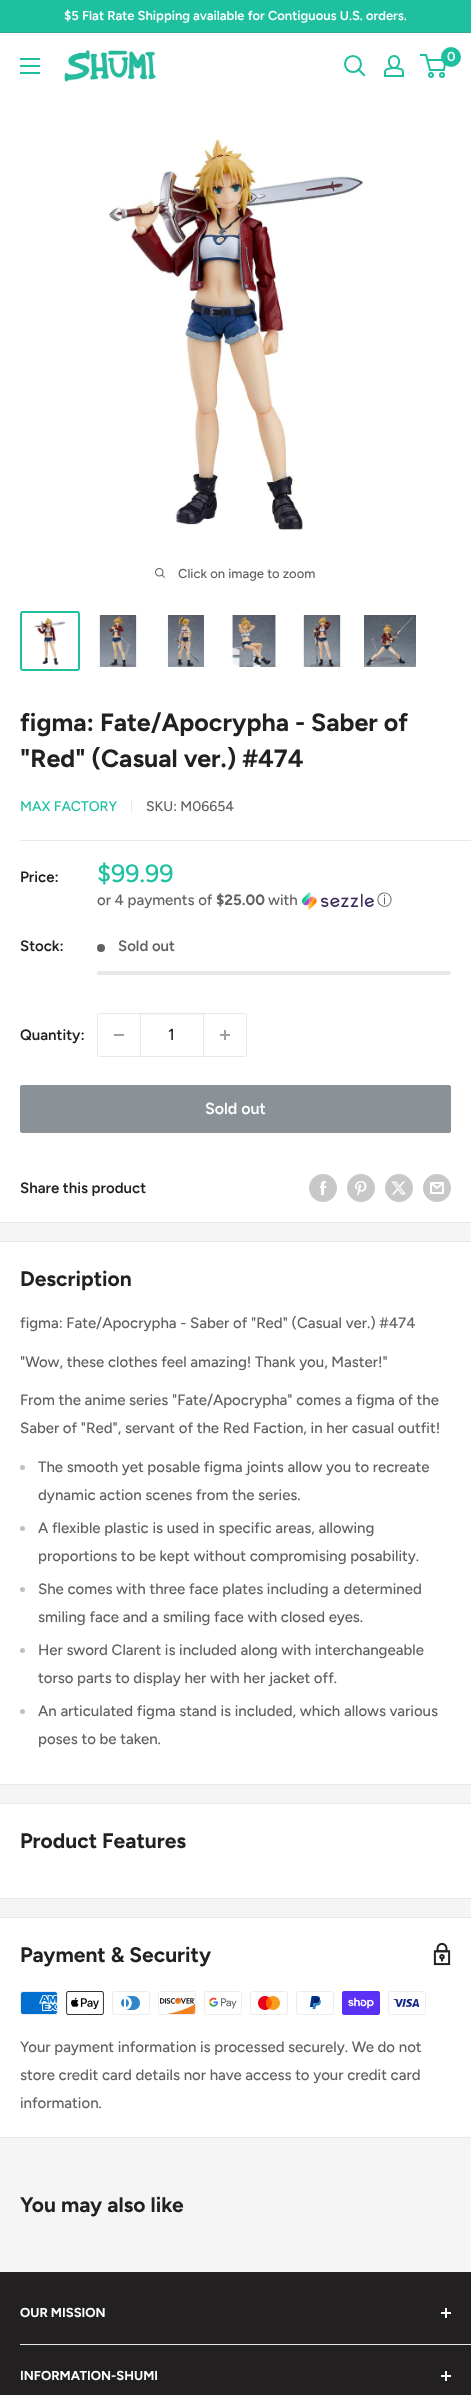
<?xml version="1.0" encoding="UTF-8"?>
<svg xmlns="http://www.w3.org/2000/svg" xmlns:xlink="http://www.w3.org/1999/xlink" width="471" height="2395">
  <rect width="100%" height="100%" fill="#f5f5f5" />
  <rect width="471" height="32" fill="#1fc0a0" />
  <rect y="32" width="471" height="1" fill="#33a48d" />
  <rect y="33" width="471" height="1189" fill="#ffffff" />
  <image x="64" y="50" width="92" height="32" xlink:href="image1.png" />
  <path d="M 364 75 l -5.5 -5.5" fill="none" stroke="#1fc0a0" stroke-width="2.1" stroke-linecap="square" />
  <circle cx="353" cy="64" r="8" fill="none" stroke="#1fc0a0" stroke-width="2.1" />
  <image x="384" y="55" width="20" height="22" xlink:href="image2.png" />
  <circle cx="431" cy="75" r="2" fill="none" stroke="#1fc0a0" stroke-width="2" />
  <circle cx="442" cy="75" r="2" fill="none" stroke="#1fc0a0" stroke-width="2" />
  <path d="M 427.5 60 h 18 l -1.5 10 h -14 l -4 -15 h -6" fill="none" stroke="#1fc0a0" stroke-width="2" />
  <circle cx="451" cy="57" r="10" fill="#1fc0a0" />
  <image x="20" y="58" width="20" height="16" xlink:href="image3.png" />
  <image x="109" y="139" width="254" height="391" xlink:href="image4.png" />
  <image x="155" y="568" width="10" height="10" xlink:href="image5.png" />
  <rect x="21" y="612" width="58" height="58" rx="2" fill="none" stroke="#1fc0a0" stroke-width="2" />
  <image x="34" y="617" width="32" height="48" xlink:href="image6.png" />
  <image x="99" y="615" width="38" height="52" xlink:href="image7.png" />
  <image x="167" y="615" width="38" height="52" xlink:href="image8.png" />
  <image x="232" y="615" width="44" height="52" xlink:href="image9.png" />
  <image x="303" y="615" width="38" height="52" xlink:href="image10.png" />
  <image x="364" y="615" width="52" height="52" xlink:href="image11.png" />
  <rect y="1222" width="471" height="1" fill="#e8e8e8" />
  <rect x="131" y="800" width="1" height="13" fill="#e8e8e8" />
  <rect x="20" y="840" width="451" height="1" fill="#e8e8e8" />
  <image x="302" y="892" width="72" height="18" xlink:href="image12.png" />
  <circle cx="101" cy="948" r="4" fill="#616161" />
  <rect x="97" y="971" width="354" height="4" rx="2" fill="#e8e8e8" />
  <rect x="97.5" y="1013.5" width="149" height="43" rx="2.5" fill="none" stroke="#e8e8e8" />
  <rect x="114" y="1034" width="10" height="2" fill="#a0a0a0" />
  <rect x="141" y="1014" width="62" height="1" fill="#f6f6f6" />
  <rect x="203" y="1014" width="1" height="42" fill="#e8e8e8" />
  <rect x="140" y="1014" width="1" height="42" fill="#e8e8e8" />
  <image x="220" y="1030" width="10" height="10" xlink:href="image13.png" />
  <rect x="20.5" y="1085.5" width="430" height="47" rx="1.5" fill="#8a9297" stroke="#8a9297" />
  <image x="309" y="1174" width="28" height="28" xlink:href="image14.png" />
  <image x="347" y="1174" width="28" height="28" xlink:href="image15.png" />
  <image x="385" y="1174" width="28" height="28" xlink:href="image16.png" />
  <image x="423" y="1174" width="28" height="28" xlink:href="image17.png" />
  <rect y="1242" width="471" height="542" fill="#ffffff" />
  <rect y="1241" width="471" height="1" fill="#e8e8e8" />
  <rect y="1784" width="471" height="1" fill="#e8e8e8" />
  <circle cx="22.5" cy="1467.5" r="2.5" fill="#c0c0c0" />
  <circle cx="22.5" cy="1528.5" r="2.5" fill="#c0c0c0" />
  <circle cx="22.5" cy="1589.5" r="2.5" fill="#c0c0c0" />
  <circle cx="22.5" cy="1650.5" r="2.5" fill="#c0c0c0" />
  <circle cx="22.5" cy="1711.5" r="2.5" fill="#c0c0c0" />
  <rect y="1804" width="471" height="94" fill="#ffffff" />
  <rect y="1803" width="471" height="1" fill="#e8e8e8" />
  <rect y="1898" width="471" height="1" fill="#e8e8e8" />
  <rect y="1918" width="471" height="219" fill="#ffffff" />
  <rect y="1917" width="471" height="1" fill="#e8e8e8" />
  <rect y="2137" width="471" height="1" fill="#e8e8e8" />
  <image x="433" y="1942" width="18" height="24" xlink:href="image18.png" />
  <image x="20" y="1991" width="38" height="24" xlink:href="image19.png" />
  <image x="66" y="1991" width="38" height="24" xlink:href="image20.png" />
  <image x="112" y="1991" width="38" height="24" xlink:href="image21.png" />
  <image x="158" y="1991" width="38" height="24" xlink:href="image22.png" />
  <image x="204" y="1991" width="38" height="24" xlink:href="image23.png" />
  <image x="250" y="1991" width="38" height="24" xlink:href="image24.png" />
  <image x="296" y="1991" width="38" height="24" xlink:href="image25.png" />
  <image x="342" y="1991" width="38" height="24" xlink:href="image26.png" />
  <image x="388" y="1991" width="38" height="24" xlink:href="image27.png" />
  <rect y="2272" width="471" height="123" fill="#222021" />
  <rect x="20" y="2344" width="451" height="1" fill="#e8e8e8" />
  <rect x="445" y="2308" width="2" height="10" fill="#ffffff" />
  <rect x="441" y="2312" width="10" height="2" fill="#ffffff" />
  <rect x="445" y="2371" width="2" height="10" fill="#ffffff" />
  <rect x="441" y="2375" width="10" height="2" fill="#ffffff" />
  <text x="64" y="20" style="font-family: Figtree; font-size: 13px; font-weight: 600; fill: #ffffff">$5 Flat Rate Shipping available for Contiguous U.S. orders.</text>
  <text x="447" y="61" style="font-family: Figtree; font-size: 13px; font-weight: 600; fill: #ffffff">0</text>
  <text x="178" y="578" style="font-family: Figtree; font-size: 13px; font-weight: 500; fill: #616161">Click on image to zoom</text>
  <text x="20" y="731" style="font-family: Figtree; font-size: 25px; font-weight: bold; fill: #222021">figma: Fate/Apocrypha - Saber of</text>
  <text x="20" y="767" style="font-family: Figtree; font-size: 25px; font-weight: bold; fill: #222021">"Red" (Casual ver.) #474</text>
  <text x="20" y="811" style="font-family: Figtree; font-size: 14px; font-weight: 500; fill: #1fc0a0">MAX FACTORY</text>
  <text x="146" y="811" style="font-family: Figtree; font-size: 14px; font-weight: 500; fill: #616161">SKU: M06654</text>
  <text x="20" y="882" style="font-family: Figtree; font-size: 15px; font-weight: 600; fill: #222021">Price:</text>
  <text x="97" y="882" style="font-family: Figtree; font-size: 25px; font-weight: 500; fill: #1fc0a0">$99.99</text>
  <text x="97" y="905" style="font-family: Figtree; font-size: 15px; font-weight: 500; fill: #616161">or 4 payments of</text>
  <text x="216" y="905" style="font-family: Figtree; font-size: 15px; font-weight: bold; fill: #616161">$25.00</text>
  <text x="268" y="905" style="font-family: Figtree; font-size: 15px; font-weight: 500; fill: #616161">with</text>
  <text x="377" y="905" style="font-family: WenQuanYi Zen Hei; font-size: 15px; font-weight: 500; fill: #616161">ⓘ</text>
  <text x="20" y="951" style="font-family: Figtree; font-size: 15px; font-weight: 600; fill: #222021">Stock:</text>
  <text x="118" y="951" style="font-family: Figtree; font-size: 15px; font-weight: 600; fill: #616161">Sold out</text>
  <text x="20" y="1040" style="font-family: Figtree; font-size: 15px; font-weight: 600; fill: #222021">Quantity:</text>
  <text x="168" y="1040" style="font-family: Figtree; font-size: 16px; font-weight: 500; fill: #222021">1</text>
  <text x="205" y="1114" style="font-family: Figtree; font-size: 16px; font-weight: 600; fill: #ffffff">Sold out</text>
  <text x="20" y="1193" style="font-family: Figtree; font-size: 15px; font-weight: 600; fill: #222021">Share this product</text>
  <text x="20" y="1286" style="font-family: Figtree; font-size: 21px; font-weight: bold; fill: #222021">Description</text>
  <text x="20" y="1328" style="font-family: Figtree; font-size: 15px; font-weight: 500; fill: #616161">figma: Fate/Apocrypha - Saber of "Red" (Casual ver.) #474</text>
  <text x="20" y="1367" style="font-family: Figtree; font-size: 15px; font-weight: 500; fill: #616161">"Wow, these clothes feel amazing! Thank you, Master!"</text>
  <text x="20" y="1405" style="font-family: Figtree; font-size: 15px; font-weight: 500; fill: #616161">From the anime series "Fate/Apocrypha" comes a figma of the</text>
  <text x="20" y="1433" style="font-family: Figtree; font-size: 15px; font-weight: 500; fill: #616161">Saber of "Red", servant of the Red Faction, in her casual outfit!</text>
  <text x="38" y="1472" style="font-family: Figtree; font-size: 15px; font-weight: 500; fill: #616161">The smooth yet posable figma joints allow you to recreate</text>
  <text x="38" y="1500" style="font-family: Figtree; font-size: 15px; font-weight: 500; fill: #616161">dynamic action scenes from the series.</text>
  <text x="38" y="1533" style="font-family: Figtree; font-size: 15px; font-weight: 500; fill: #616161">A flexible plastic is used in specific areas, allowing</text>
  <text x="38" y="1561" style="font-family: Figtree; font-size: 15px; font-weight: 500; fill: #616161">proportions to be kept without compromising posability.</text>
  <text x="38" y="1594" style="font-family: Figtree; font-size: 15px; font-weight: 500; fill: #616161">She comes with three face plates including a determined</text>
  <text x="38" y="1622" style="font-family: Figtree; font-size: 15px; font-weight: 500; fill: #616161">smiling face and a smiling face with closed eyes.</text>
  <text x="38" y="1655" style="font-family: Figtree; font-size: 15px; font-weight: 500; fill: #616161">Her sword Clarent is included along with interchangeable</text>
  <text x="38" y="1683" style="font-family: Figtree; font-size: 15px; font-weight: 500; fill: #616161">torso parts to display her with her jacket off.</text>
  <text x="38" y="1716" style="font-family: Figtree; font-size: 15px; font-weight: 500; fill: #616161">An articulated figma stand is included, which allows various</text>
  <text x="38" y="1744" style="font-family: Figtree; font-size: 15px; font-weight: 500; fill: #616161">poses to be taken.</text>
  <text x="20" y="1848" style="font-family: Figtree; font-size: 21px; font-weight: bold; fill: #222021">Product Features</text>
  <text x="20" y="1962" style="font-family: Figtree; font-size: 21px; font-weight: bold; fill: #222021">Payment &amp; Security</text>
  <text x="20" y="2052" style="font-family: Figtree; font-size: 15px; font-weight: 500; fill: #616161">Your payment information is processed securely. We do not</text>
  <text x="20" y="2080" style="font-family: Figtree; font-size: 15px; font-weight: 500; fill: #616161">store credit card details nor have access to your credit card</text>
  <text x="20" y="2108" style="font-family: Figtree; font-size: 15px; font-weight: 500; fill: #616161">information.</text>
  <text x="20" y="2212" style="font-family: Figtree; font-size: 21px; font-weight: bold; fill: #222021">You may also like</text>
  <text x="20" y="2317" style="font-family: Figtree; font-size: 13px; font-weight: bold; fill: #ffffff">OUR MISSION</text>
  <text x="20" y="2380" style="font-family: Figtree; font-size: 13px; font-weight: bold; fill: #ffffff">INFORMATION-SHUMI</text>
</svg>
